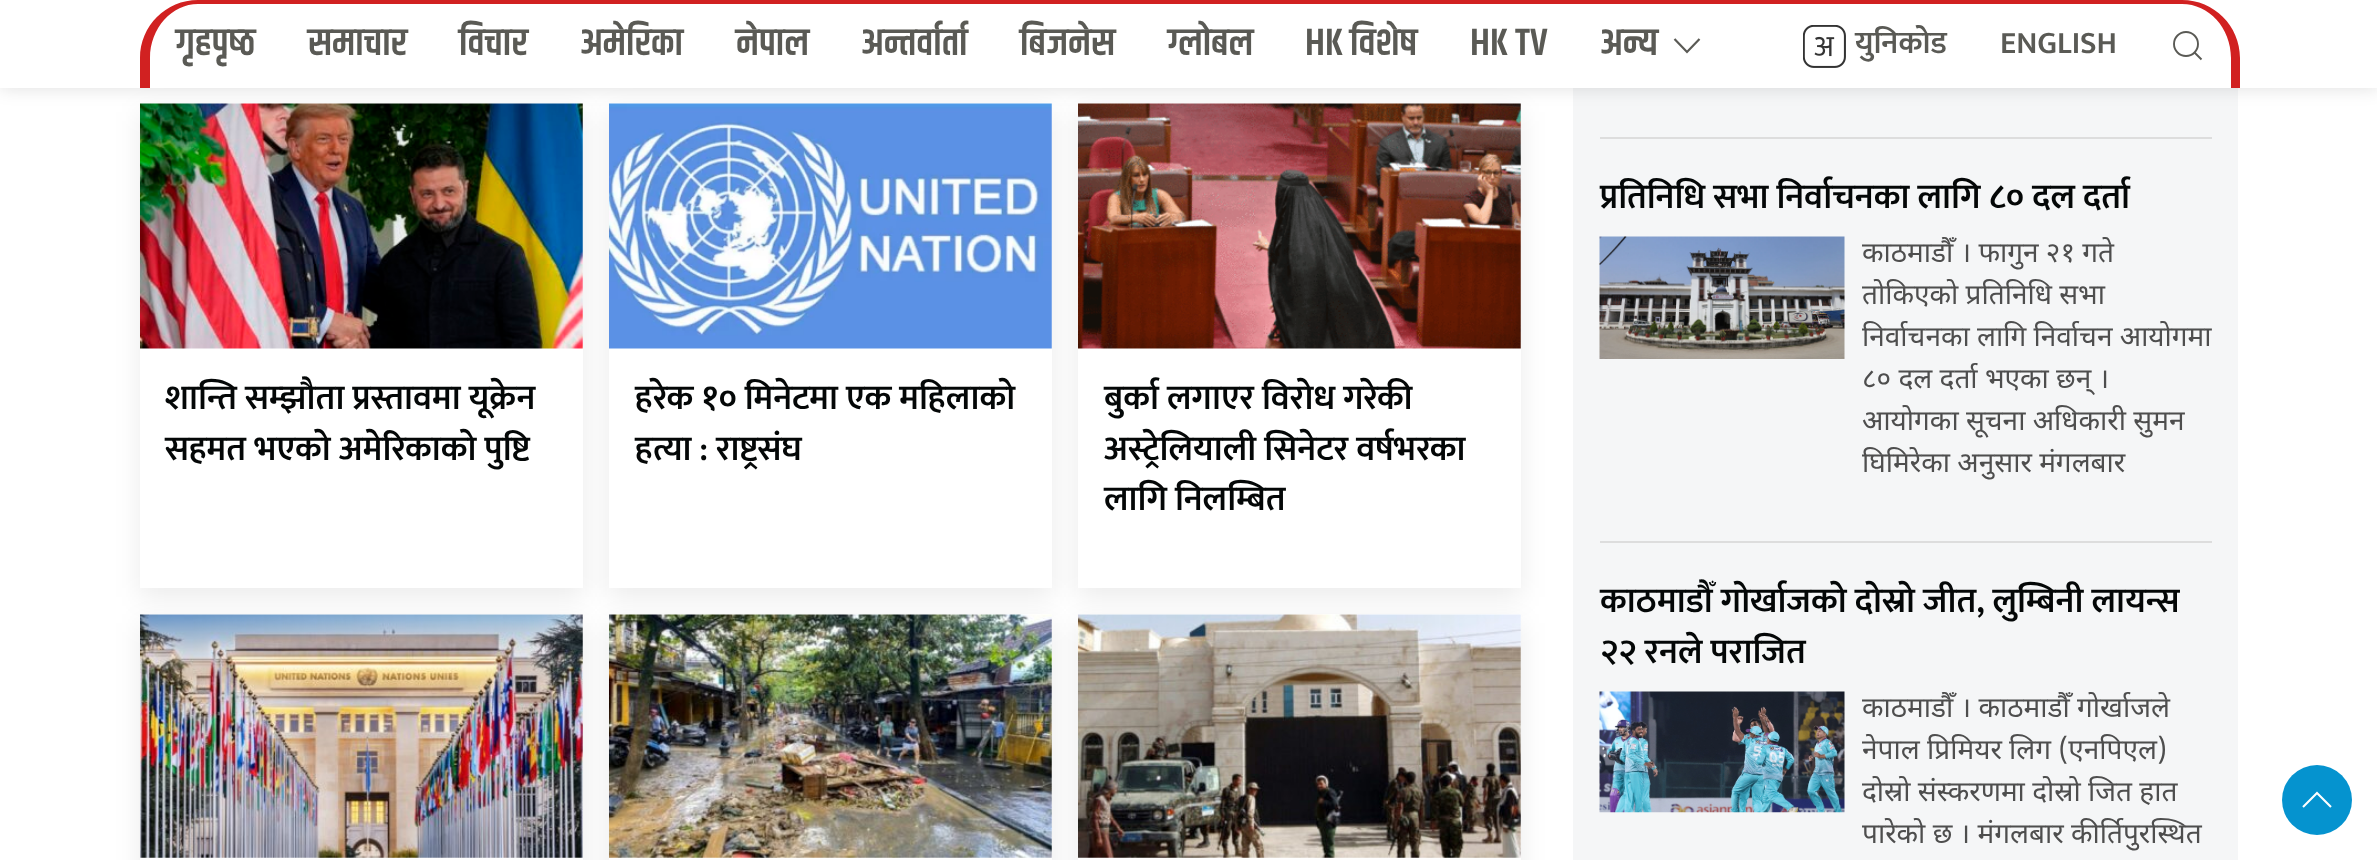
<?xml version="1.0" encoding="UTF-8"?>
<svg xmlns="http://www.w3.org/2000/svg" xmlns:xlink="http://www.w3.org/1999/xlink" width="2377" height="860">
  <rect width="100%" height="100%" fill="#ffffff" />
  <rect x="140" y="112" width="443" height="485" fill="#000000" fill-opacity="0.08" filter="blur(13px)" />
  <rect x="140" y="103" width="443" height="485" fill="#ffffff" />
  <image x="140" y="103" width="443" height="246" xlink:href="image2.png" />
  <rect x="609" y="112" width="443" height="485" fill="#000000" fill-opacity="0.08" filter="blur(13px)" />
  <rect x="609" y="103" width="443" height="485" fill="#ffffff" />
  <image x="609" y="103" width="443" height="246" xlink:href="image3.png" />
  <rect x="1078" y="112" width="443" height="485" fill="#000000" fill-opacity="0.08" filter="blur(13px)" />
  <rect x="1078" y="103" width="443" height="485" fill="#ffffff" />
  <image x="1078" y="103" width="443" height="246" xlink:href="image4.png" />
  <rect x="1573" y="88" width="665" height="772" fill="#f5f6f7" />
  <rect width="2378" height="88" fill="#000000" fill-opacity="0.13" filter="blur(9px)" />
  <rect width="2377" height="88" fill="#ffffff" />
  <path d="M 198 0 h 1984 c 32 0 58 26 58 58 v 30 h -2100 v -30 c 0 -32 26 -58 58 -58 z m 0 4 h 1984 c 27 0 49 24 49 54 v 30 h -2081 v -30 c 0 -30 22 -54 48 -54 z" fill="#d12121" fill-rule="evenodd" />
  <path d="M 1699.5 39 l -12.5 13 l -12.5 -13" fill="none" stroke="#5a5a55" stroke-width="2.2" />
  <image x="1803" y="25" width="43" height="43" xlink:href="image1.png" />
  <circle cx="2186" cy="44" r="12" fill="none" stroke="#5a5a55" stroke-width="1.9" />
  <path d="M 2194.5 52.5 l 7 7 z" fill="none" stroke="#5a5a55" stroke-width="1.9" />
  <rect x="140" y="623" width="443" height="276" fill="#000000" fill-opacity="0.08" filter="blur(13px)" />
  <rect x="140" y="614" width="443" height="246" fill="#ffffff" />
  <image x="140" y="614" width="443" height="244" xlink:href="image5.png" />
  <rect x="609" y="623" width="443" height="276" fill="#000000" fill-opacity="0.08" filter="blur(13px)" />
  <rect x="609" y="614" width="443" height="246" fill="#ffffff" />
  <image x="609" y="614" width="443" height="244" xlink:href="image6.png" />
  <rect x="1078" y="623" width="443" height="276" fill="#000000" fill-opacity="0.08" filter="blur(13px)" />
  <rect x="1078" y="614" width="443" height="246" fill="#ffffff" />
  <image x="1078" y="614" width="443" height="244" xlink:href="image7.png" />
  <rect x="1600" y="137" width="612" height="2" fill="#dddddd" />
  <rect x="1600" y="541" width="612" height="2" fill="#dddddd" />
  <image x="1599" y="236" width="246" height="123" xlink:href="image8.png" />
  <image x="1599" y="691" width="246" height="122" xlink:href="image9.png" />
  <circle cx="2317" cy="800" r="35" fill="#0593cf" />
  <path d="M 2303 807 l 14 -14 l 14 14" fill="none" stroke="#ffffff" stroke-width="2.1" />
  <text x="176" y="55" style="font-family: Khand; font-size: 38.5px; font-weight: 600; fill: #5a5a55">गृहपृष्‍ठ</text>
  <text x="308" y="55" style="font-family: Khand; font-size: 38.5px; font-weight: 600; fill: #5a5a55">समाचार</text>
  <text x="459" y="55" style="font-family: Khand; font-size: 38.5px; font-weight: 600; fill: #5a5a55">विचार</text>
  <text x="580" y="55" style="font-family: Khand; font-size: 38.5px; font-weight: 600; fill: #5a5a55">अमेरिका</text>
  <text x="736" y="55" style="font-family: Khand; font-size: 38.5px; font-weight: 600; fill: #5a5a55">नेपाल</text>
  <text x="861" y="55" style="font-family: Khand; font-size: 38.5px; font-weight: 600; fill: #5a5a55">अन्तर्वार्ता</text>
  <text x="1020" y="55" style="font-family: Khand; font-size: 38.5px; font-weight: 600; fill: #5a5a55">बिजनेस</text>
  <text x="1168" y="55" style="font-family: Khand; font-size: 38.5px; font-weight: 600; fill: #5a5a55">ग्लोबल</text>
  <text x="1305" y="55" style="font-family: Khand; font-size: 38.5px; font-weight: 600; fill: #5a5a55">HK विशेष</text>
  <text x="1470" y="55" style="font-family: Khand; font-size: 38.5px; font-weight: 600; fill: #5a5a55">HK TV</text>
  <text x="1600" y="55" style="font-family: Khand; font-size: 38.5px; font-weight: 600; fill: #5a5a55">अन्य</text>
  <text x="1855" y="53" style="font-family: Mukta; font-size: 31.5px; font-weight: 600; fill: #5a5a55">युनिकोड</text>
  <text x="2000" y="53" style="font-family: Mukta; font-size: 31.5px; font-weight: 600; fill: #5a5a55">ENGLISH</text>
  <text x="165" y="409" style="font-family: Mukta; font-size: 35px; font-weight: 600; fill: #040707">शान्ति सम्झौता प्रस्तावमा यूक्रेन</text>
  <text x="165" y="460" style="font-family: Mukta; font-size: 35px; font-weight: 600; fill: #040707">सहमत भएको अमेरिकाको पुष्टि</text>
  <text x="635" y="409" style="font-family: Mukta; font-size: 35px; font-weight: 600; fill: #040707">हरेक १० मिनेटमा एक महिलाको</text>
  <text x="635" y="460" style="font-family: Mukta; font-size: 35px; font-weight: 600; fill: #040707">हत्या : राष्ट्रसंघ</text>
  <text x="1104" y="409" style="font-family: Mukta; font-size: 35px; font-weight: 600; fill: #040707">बुर्का लगाएर विरोध गरेकी</text>
  <text x="1104" y="460" style="font-family: Mukta; font-size: 35px; font-weight: 600; fill: #040707">अस्ट्रेलियाली सिनेटर वर्षभरका</text>
  <text x="1104" y="510" style="font-family: Mukta; font-size: 35px; font-weight: 600; fill: #040707">लागि निलम्बित</text>
  <text x="1600" y="208" style="font-family: Mukta; font-size: 35px; font-weight: 600; fill: #040707">प्रतिनिधि सभा निर्वाचनका लागि ८० दल दर्ता</text>
  <text x="1862" y="262" style="font-family: Noto Sans Devanagari; font-size: 28px; fill: #4e4e4e">काठमाडौँ । फागुन २१ गते</text>
  <text x="1862" y="304" style="font-family: Noto Sans Devanagari; font-size: 28px; fill: #4e4e4e">तोकिएको प्रतिनिधि सभा</text>
  <text x="1862" y="346" style="font-family: Noto Sans Devanagari; font-size: 28px; fill: #4e4e4e">निर्वाचनका लागि निर्वाचन आयोगमा</text>
  <text x="1862" y="388" style="font-family: Noto Sans Devanagari; font-size: 28px; fill: #4e4e4e">८० दल दर्ता भएका छन् ।</text>
  <text x="1862" y="430" style="font-family: Noto Sans Devanagari; font-size: 28px; fill: #4e4e4e">आयोगका सूचना अधिकारी सुमन</text>
  <text x="1862" y="472" style="font-family: Noto Sans Devanagari; font-size: 28px; fill: #4e4e4e">घिमिरेका अनुसार मंगलबार</text>
  <text x="1600" y="612" style="font-family: Mukta; font-size: 35px; font-weight: 600; fill: #040707">काठमाडौँ गोर्खाजको दोस्रो जीत, लुम्बिनी लायन्स</text>
  <text x="1600" y="663" style="font-family: Mukta; font-size: 35px; font-weight: 600; fill: #040707">२२ रनले पराजित</text>
  <text x="1862" y="717" style="font-family: Noto Sans Devanagari; font-size: 28px; fill: #4e4e4e">काठमाडौँ । काठमाडौँ गोर्खाजले</text>
  <text x="1862" y="759" style="font-family: Noto Sans Devanagari; font-size: 28px; fill: #4e4e4e">नेपाल प्रिमियर लिग (एनपिएल)</text>
  <text x="1862" y="801" style="font-family: Noto Sans Devanagari; font-size: 28px; fill: #4e4e4e">दोस्रो संस्करणमा दोस्रो जित हात</text>
  <text x="1862" y="843" style="font-family: Noto Sans Devanagari; font-size: 28px; fill: #4e4e4e">पारेको छ । मंगलबार कीर्तिपुरस्थित</text>
</svg>
